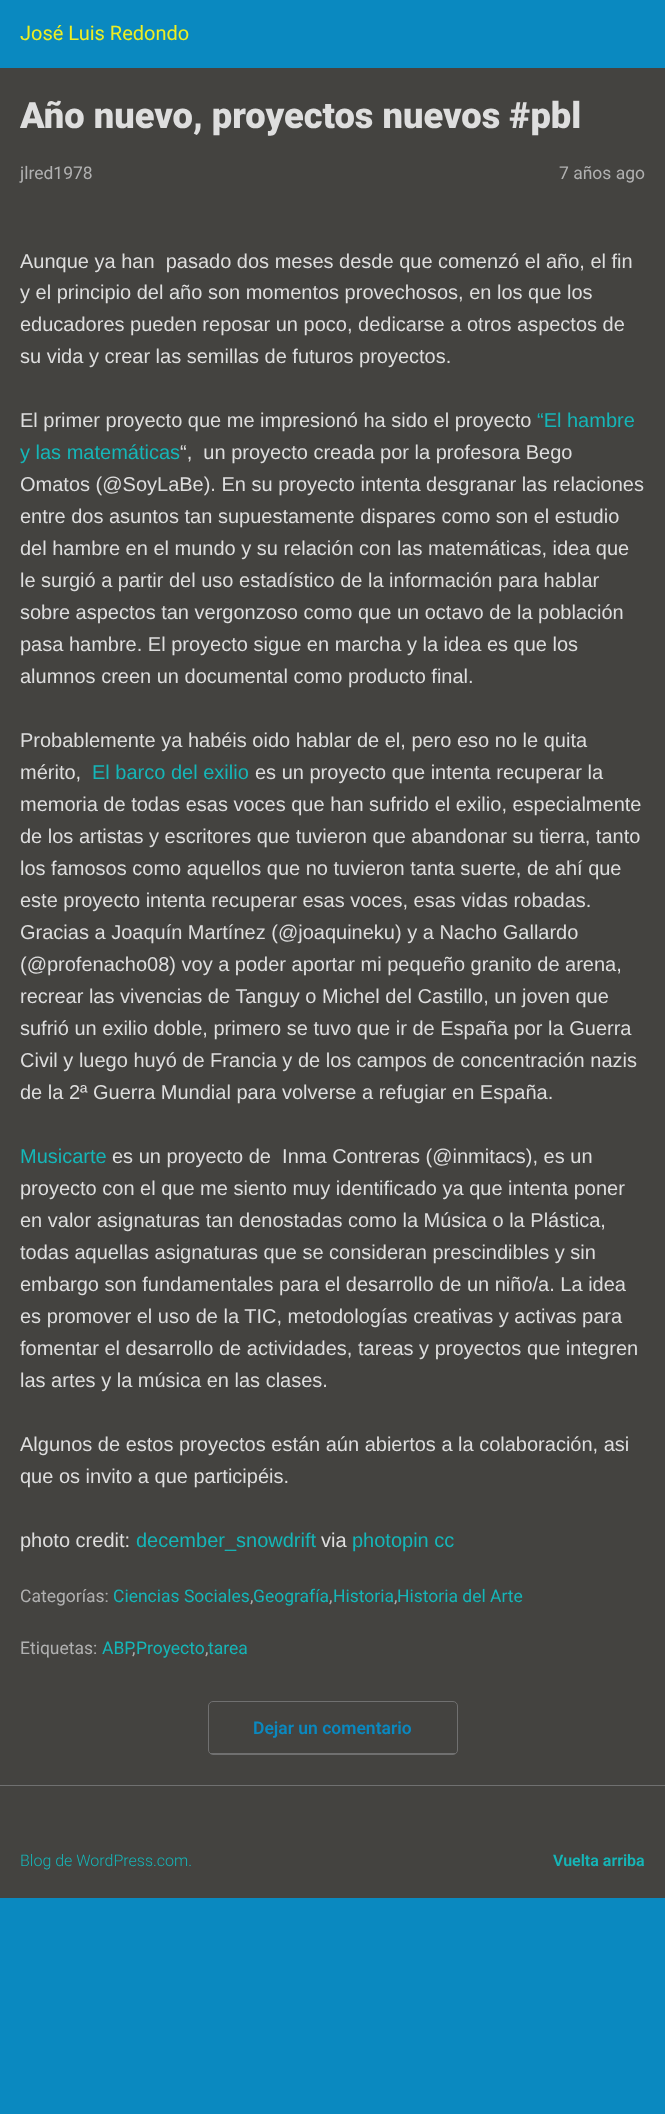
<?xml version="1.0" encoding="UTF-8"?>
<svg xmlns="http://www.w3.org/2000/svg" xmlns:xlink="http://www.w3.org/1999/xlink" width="665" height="2114">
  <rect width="100%" height="100%" fill="#0a89c0" />
  <rect y="68" width="665" height="1830" fill="#444340" />
  <rect x="208.5" y="1701.5" width="249" height="53" rx="4.5" fill="none" stroke="#707070" />
  <rect x="210" y="1753" width="245" height="1" fill="#707070" />
  <rect y="1785" width="665" height="1" fill="#707070" />
  <text x="20" y="40" style="font-family: Roboto; font-size: 20px; fill: #eeee22">José Luis Redondo</text>
  <text x="20" y="128" style="font-family: Roboto; font-size: 36.25px; font-weight: 900; fill: #dedede">Año nuevo, proyectos nuevos #pbl</text>
  <text x="20" y="179" style="font-family: Roboto; font-size: 17.5px; fill: #b1b1b1">jlred1978</text>
  <text x="559" y="179" style="font-family: Roboto; font-size: 17.5px; fill: #b1b1b1">7 años ago</text>
  <text x="20" y="268" style="font-family: Liberation Sans; font-size: 20px; fill: #dedede" xml:space="preserve">Aunque ya han  pasado dos meses desde que comenzó el año, el fin</text>
  <text x="20" y="299" style="font-family: Liberation Sans; font-size: 20px; fill: #dedede">y el principio del año son momentos provechosos, en los que los</text>
  <text x="20" y="331" style="font-family: Liberation Sans; font-size: 20px; fill: #dedede">educadores pueden reposar un poco, dedicarse a otros aspectos de</text>
  <text x="20" y="363" style="font-family: Liberation Sans; font-size: 20px; fill: #dedede">su vida y crear las semillas de futuros proyectos.</text>
  <text x="20" y="427" style="font-family: Liberation Sans; font-size: 20px; fill: #dedede">El primer proyecto que me impresionó ha sido el proyecto</text>
  <text x="537" y="427" style="font-family: Liberation Sans; font-size: 20px; fill: #15b6b8">“El hambre</text>
  <text x="20" y="459" style="font-family: Liberation Sans; font-size: 20px; fill: #15b6b8">y las matemáticas</text>
  <text x="180" y="459" style="font-family: Liberation Sans; font-size: 20px; fill: #dedede" xml:space="preserve">“,  un proyecto creada por la profesora Bego</text>
  <text x="20" y="491" style="font-family: Liberation Sans; font-size: 20px; fill: #dedede">Omatos (@SoyLaBe). En su proyecto intenta desgranar las relaciones</text>
  <text x="20" y="523" style="font-family: Liberation Sans; font-size: 20px; fill: #dedede">entre dos asuntos tan supuestamente dispares como son el estudio</text>
  <text x="20" y="555" style="font-family: Liberation Sans; font-size: 20px; fill: #dedede">del hambre en el mundo y su relación con las matemáticas, idea que</text>
  <text x="20" y="587" style="font-family: Liberation Sans; font-size: 20px; fill: #dedede">le surgió a partir del uso estadístico de la información para hablar</text>
  <text x="20" y="619" style="font-family: Liberation Sans; font-size: 20px; fill: #dedede">sobre aspectos tan vergonzoso como que un octavo de la población</text>
  <text x="20" y="651" style="font-family: Liberation Sans; font-size: 20px; fill: #dedede">pasa hambre. El proyecto sigue en marcha y la idea es que los</text>
  <text x="20" y="683" style="font-family: Liberation Sans; font-size: 20px; fill: #dedede">alumnos creen un documental como producto final.</text>
  <text x="20" y="747" style="font-family: Liberation Sans; font-size: 20px; fill: #dedede">Probablemente ya habéis oido hablar de el, pero eso no le quita</text>
  <text x="20" y="779" style="font-family: Liberation Sans; font-size: 20px; fill: #dedede">mérito,</text>
  <text x="92" y="779" style="font-family: Liberation Sans; font-size: 20px; fill: #15b6b8">El barco del exilio</text>
  <text x="255" y="779" style="font-family: Liberation Sans; font-size: 20px; fill: #dedede">es un proyecto que intenta recuperar la</text>
  <text x="20" y="811" style="font-family: Liberation Sans; font-size: 20px; fill: #dedede">memoria de todas esas voces que han sufrido el exilio, especialmente</text>
  <text x="20" y="843" style="font-family: Liberation Sans; font-size: 20px; fill: #dedede">de los artistas y escritores que tuvieron que abandonar su tierra, tanto</text>
  <text x="20" y="875" style="font-family: Liberation Sans; font-size: 20px; fill: #dedede">los famosos como aquellos que no tuvieron tanta suerte, de ahí que</text>
  <text x="20" y="907" style="font-family: Liberation Sans; font-size: 20px; fill: #dedede">este proyecto intenta recuperar esas voces, esas vidas robadas.</text>
  <text x="20" y="939" style="font-family: Liberation Sans; font-size: 20px; fill: #dedede">Gracias a Joaquín Martínez (@joaquineku) y a Nacho Gallardo</text>
  <text x="20" y="971" style="font-family: Liberation Sans; font-size: 20px; fill: #dedede">(@profenacho08) voy a poder aportar mi pequeño granito de arena,</text>
  <text x="20" y="1003" style="font-family: Liberation Sans; font-size: 20px; fill: #dedede">recrear las vivencias de Tanguy o Michel del Castillo, un joven que</text>
  <text x="20" y="1035" style="font-family: Liberation Sans; font-size: 20px; fill: #dedede">sufrió un exilio doble, primero se tuvo que ir de España por la Guerra</text>
  <text x="20" y="1067" style="font-family: Liberation Sans; font-size: 20px; fill: #dedede">Civil y luego huyó de Francia y de los campos de concentración nazis</text>
  <text x="20" y="1099" style="font-family: Liberation Sans; font-size: 20px; fill: #dedede">de la 2ª Guerra Mundial para volverse a refugiar en España.</text>
  <text x="20" y="1163" style="font-family: Liberation Sans; font-size: 20px; fill: #15b6b8">Musicarte</text>
  <text x="112" y="1163" style="font-family: Liberation Sans; font-size: 20px; fill: #dedede" xml:space="preserve">es un proyecto de  Inma Contreras (@inmitacs), es un</text>
  <text x="20" y="1195" style="font-family: Liberation Sans; font-size: 20px; fill: #dedede">proyecto con el que me siento muy identificado ya que intenta poner</text>
  <text x="20" y="1227" style="font-family: Liberation Sans; font-size: 20px; fill: #dedede">en valor asignaturas tan denostadas como la Música o la Plástica,</text>
  <text x="20" y="1259" style="font-family: Liberation Sans; font-size: 20px; fill: #dedede">todas aquellas asignaturas que se consideran prescindibles y sin</text>
  <text x="20" y="1291" style="font-family: Liberation Sans; font-size: 20px; fill: #dedede">embargo son fundamentales para el desarrollo de un niño/a. La idea</text>
  <text x="20" y="1323" style="font-family: Liberation Sans; font-size: 20px; fill: #dedede">es promover el uso de la TIC, metodologías creativas y activas para</text>
  <text x="20" y="1355" style="font-family: Liberation Sans; font-size: 20px; fill: #dedede">fomentar el desarrollo de actividades, tareas y proyectos que integren</text>
  <text x="20" y="1387" style="font-family: Liberation Sans; font-size: 20px; fill: #dedede">las artes y la música en las clases.</text>
  <text x="20" y="1451" style="font-family: Liberation Sans; font-size: 20px; fill: #dedede">Algunos de estos proyectos están aún abiertos a la colaboración, asi</text>
  <text x="20" y="1483" style="font-family: Liberation Sans; font-size: 20px; fill: #dedede">que os invito a que participéis.</text>
  <text x="20" y="1547" style="font-family: Liberation Sans; font-size: 20px; fill: #dedede">photo credit:</text>
  <text x="136" y="1547" style="font-family: Liberation Sans; font-size: 20px; fill: #15b6b8">december_snowdrift</text>
  <text x="321" y="1547" style="font-family: Liberation Sans; font-size: 20px; fill: #dedede">via</text>
  <text x="352" y="1547" style="font-family: Liberation Sans; font-size: 20px; fill: #15b6b8">photopin cc</text>
  <text x="20" y="1602" style="font-family: Roboto; font-size: 17.5px; fill: #b1b1b1">Categorías:</text>
  <text x="113" y="1602" style="font-family: Roboto; font-size: 17.5px; fill: #15b6b8">Ciencias Sociales</text>
  <text x="250" y="1602" style="font-family: Roboto; font-size: 17.5px; fill: #b1b1b1">,</text>
  <text x="253" y="1602" style="font-family: Roboto; font-size: 17.5px; fill: #15b6b8">Geografía</text>
  <text x="329" y="1602" style="font-family: Roboto; font-size: 17.5px; fill: #b1b1b1">,</text>
  <text x="333" y="1602" style="font-family: Roboto; font-size: 17.5px; fill: #15b6b8">Historia</text>
  <text x="394" y="1602" style="font-family: Roboto; font-size: 17.5px; fill: #b1b1b1">,</text>
  <text x="397" y="1602" style="font-family: Roboto; font-size: 17.5px; fill: #15b6b8">Historia del Arte</text>
  <text x="20" y="1654" style="font-family: Roboto; font-size: 17.5px; fill: #b1b1b1">Etiquetas:</text>
  <text x="102" y="1654" style="font-family: Roboto; font-size: 17.5px; fill: #15b6b8">ABP</text>
  <text x="136" y="1654" style="font-family: Roboto; font-size: 17.5px; fill: #15b6b8">Proyecto</text>
  <text x="208" y="1654" style="font-family: Roboto; font-size: 17.5px; fill: #15b6b8">tarea</text>
  <text x="132" y="1654" style="font-family: Roboto; font-size: 17.5px; fill: #b1b1b1">,</text>
  <text x="205" y="1654" style="font-family: Roboto; font-size: 17.5px; fill: #b1b1b1">,</text>
  <text x="253" y="1734" style="font-family: Roboto; font-size: 17.5px; font-weight: 600; fill: #0a89c0">Dejar un comentario</text>
  <text x="20" y="1866" style="font-family: Roboto; font-size: 16px; font-weight: 300; fill: #15b6b8">Blog de WordPress.com.</text>
  <text x="553" y="1866" style="font-family: Roboto; font-size: 16px; font-weight: 600; fill: #15b6b8">Vuelta arriba</text>
</svg>
